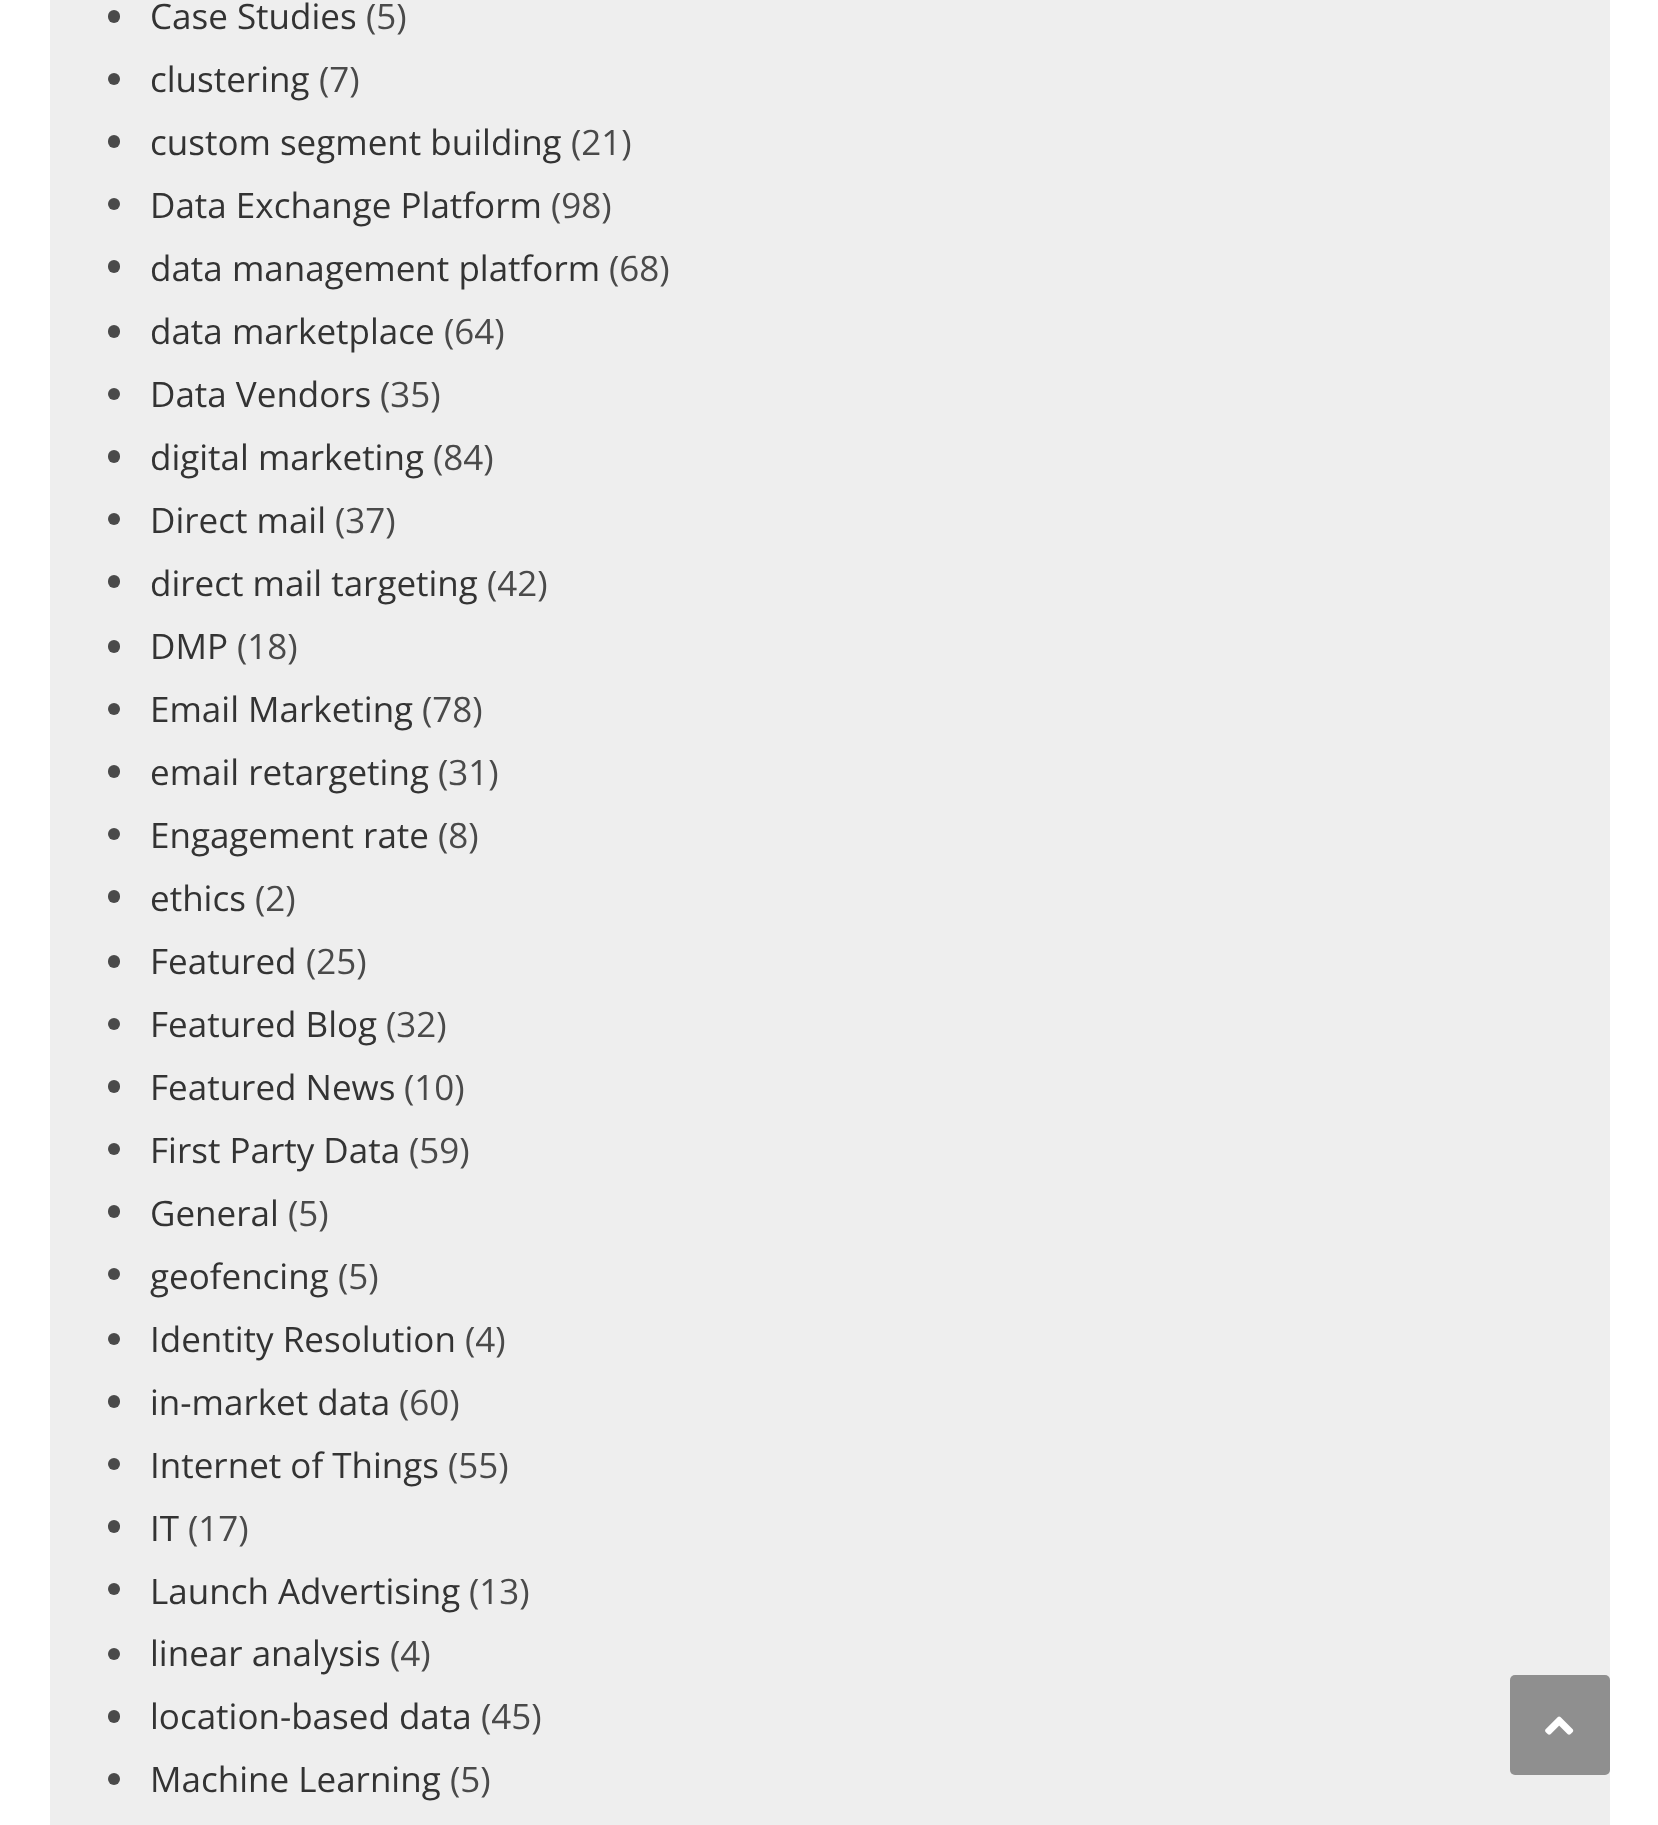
<?xml version="1.0" encoding="UTF-8"?>
<svg xmlns="http://www.w3.org/2000/svg" xmlns:xlink="http://www.w3.org/1999/xlink" width="1658" height="1825">
  <rect width="100%" height="100%" fill="#ffffff" />
  <rect x="50" width="1560" height="1825" fill="#eeeeee" />
  <rect x="108" y="10" width="12" height="13" rx="6" fill="#4a4a4a" />
  <circle cx="114" cy="79" r="6" fill="#4a4a4a" />
  <rect x="108" y="135" width="12" height="13" rx="6" fill="#4a4a4a" />
  <circle cx="114" cy="204" r="6" fill="#4a4a4a" />
  <rect x="108" y="260" width="12" height="13" rx="6" fill="#4a4a4a" />
  <rect x="108" y="325" width="12" height="13" rx="6" fill="#4a4a4a" />
  <circle cx="114" cy="394" r="6" fill="#4a4a4a" />
  <rect x="108" y="450" width="12" height="13" rx="6" fill="#4a4a4a" />
  <circle cx="114" cy="519" r="6" fill="#4a4a4a" />
  <rect x="108" y="575" width="12" height="13" rx="6" fill="#4a4a4a" />
  <rect x="108" y="640" width="12" height="13" rx="6" fill="#4a4a4a" />
  <circle cx="114" cy="709" r="6" fill="#4a4a4a" />
  <rect x="108" y="765" width="12" height="13" rx="6" fill="#4a4a4a" />
  <circle cx="114" cy="834" r="6" fill="#4a4a4a" />
  <rect x="108" y="890" width="12" height="13" rx="6" fill="#4a4a4a" />
  <rect x="108" y="955" width="12" height="13" rx="6" fill="#4a4a4a" />
  <circle cx="114" cy="1024" r="6" fill="#4a4a4a" />
  <rect x="108" y="1080" width="12" height="13" rx="6" fill="#4a4a4a" />
  <circle cx="114" cy="1149" r="6" fill="#4a4a4a" />
  <rect x="108" y="1205" width="12" height="13" rx="6" fill="#4a4a4a" />
  <circle cx="114" cy="1274" r="6" fill="#4a4a4a" />
  <circle cx="114" cy="1339" r="6" fill="#4a4a4a" />
  <rect x="108" y="1395" width="12" height="13" rx="6" fill="#4a4a4a" />
  <circle cx="114" cy="1464" r="6" fill="#4a4a4a" />
  <rect x="108" y="1520" width="12" height="13" rx="6" fill="#4a4a4a" />
  <circle cx="114" cy="1589" r="6" fill="#4a4a4a" />
  <circle cx="114" cy="1654" r="6" fill="#4a4a4a" />
  <rect x="108" y="1710" width="12" height="13" rx="6" fill="#4a4a4a" />
  <circle cx="114" cy="1779" r="6" fill="#4a4a4a" />
  <rect x="1510" y="1675" width="100" height="100" rx="5" fill="#8f8f8f" />
  <image x="1545" y="1716" width="29" height="19" xlink:href="image1.png" />
  <text x="150" y="29" style="font-family: Open Sans; font-size: 35px; fill: #333333">Case Studies</text>
  <text x="366" y="29" style="font-family: Open Sans; font-size: 35px; fill: #4a4a4a">(5)</text>
  <text x="150" y="92" style="font-family: Open Sans; font-size: 35px; fill: #333333">clustering</text>
  <text x="319" y="92" style="font-family: Open Sans; font-size: 35px; fill: #4a4a4a">(7)</text>
  <text x="150" y="155" style="font-family: Open Sans; font-size: 35px; fill: #333333">custom segment building</text>
  <text x="571" y="155" style="font-family: Open Sans; font-size: 35px; fill: #4a4a4a">(21)</text>
  <text x="150" y="218" style="font-family: Open Sans; font-size: 35px; fill: #333333">Data Exchange Platform</text>
  <text x="551" y="218" style="font-family: Open Sans; font-size: 35px; fill: #4a4a4a">(98)</text>
  <text x="150" y="281" style="font-family: Open Sans; font-size: 35px; fill: #333333">data management platform</text>
  <text x="609" y="281" style="font-family: Open Sans; font-size: 35px; fill: #4a4a4a">(68)</text>
  <text x="150" y="344" style="font-family: Open Sans; font-size: 35px; fill: #333333">data marketplace</text>
  <text x="444" y="344" style="font-family: Open Sans; font-size: 35px; fill: #4a4a4a">(64)</text>
  <text x="150" y="407" style="font-family: Open Sans; font-size: 35px; fill: #333333">Data Vendors</text>
  <text x="380" y="407" style="font-family: Open Sans; font-size: 35px; fill: #4a4a4a">(35)</text>
  <text x="150" y="470" style="font-family: Open Sans; font-size: 35px; fill: #333333">digital marketing</text>
  <text x="433" y="470" style="font-family: Open Sans; font-size: 35px; fill: #4a4a4a">(84)</text>
  <text x="150" y="533" style="font-family: Open Sans; font-size: 35px; fill: #333333">Direct mail</text>
  <text x="335" y="533" style="font-family: Open Sans; font-size: 35px; fill: #4a4a4a">(37)</text>
  <text x="150" y="596" style="font-family: Open Sans; font-size: 35px; fill: #333333">direct mail targeting</text>
  <text x="487" y="596" style="font-family: Open Sans; font-size: 35px; fill: #4a4a4a">(42)</text>
  <text x="150" y="659" style="font-family: Open Sans; font-size: 35px; fill: #333333">DMP</text>
  <text x="237" y="659" style="font-family: Open Sans; font-size: 35px; fill: #4a4a4a">(18)</text>
  <text x="150" y="722" style="font-family: Open Sans; font-size: 35px; fill: #333333">Email Marketing</text>
  <text x="422" y="722" style="font-family: Open Sans; font-size: 35px; fill: #4a4a4a">(78)</text>
  <text x="150" y="785" style="font-family: Open Sans; font-size: 35px; fill: #333333">email retargeting</text>
  <text x="438" y="785" style="font-family: Open Sans; font-size: 35px; fill: #4a4a4a">(31)</text>
  <text x="150" y="848" style="font-family: Open Sans; font-size: 35px; fill: #333333">Engagement rate</text>
  <text x="438" y="848" style="font-family: Open Sans; font-size: 35px; fill: #4a4a4a">(8)</text>
  <text x="150" y="911" style="font-family: Open Sans; font-size: 35px; fill: #333333">ethics</text>
  <text x="255" y="911" style="font-family: Open Sans; font-size: 35px; fill: #4a4a4a">(2)</text>
  <text x="150" y="974" style="font-family: Open Sans; font-size: 35px; fill: #333333">Featured</text>
  <text x="306" y="974" style="font-family: Open Sans; font-size: 35px; fill: #4a4a4a">(25)</text>
  <text x="150" y="1037" style="font-family: Open Sans; font-size: 35px; fill: #333333">Featured Blog</text>
  <text x="386" y="1037" style="font-family: Open Sans; font-size: 35px; fill: #4a4a4a">(32)</text>
  <text x="150" y="1100" style="font-family: Open Sans; font-size: 35px; fill: #333333">Featured News</text>
  <text x="404" y="1100" style="font-family: Open Sans; font-size: 35px; fill: #4a4a4a">(10)</text>
  <text x="150" y="1163" style="font-family: Open Sans; font-size: 35px; fill: #333333">First Party Data</text>
  <text x="409" y="1163" style="font-family: Open Sans; font-size: 35px; fill: #4a4a4a">(59)</text>
  <text x="150" y="1226" style="font-family: Open Sans; font-size: 35px; fill: #333333">General</text>
  <text x="288" y="1226" style="font-family: Open Sans; font-size: 35px; fill: #4a4a4a">(5)</text>
  <text x="150" y="1289" style="font-family: Open Sans; font-size: 35px; fill: #333333">geofencing</text>
  <text x="338" y="1289" style="font-family: Open Sans; font-size: 35px; fill: #4a4a4a">(5)</text>
  <text x="150" y="1352" style="font-family: Open Sans; font-size: 35px; fill: #333333">Identity Resolution</text>
  <text x="465" y="1352" style="font-family: Open Sans; font-size: 35px; fill: #4a4a4a">(4)</text>
  <text x="150" y="1415" style="font-family: Open Sans; font-size: 35px; fill: #333333">in-market data</text>
  <text x="399" y="1415" style="font-family: Open Sans; font-size: 35px; fill: #4a4a4a">(60)</text>
  <text x="150" y="1478" style="font-family: Open Sans; font-size: 35px; fill: #333333">Internet of Things</text>
  <text x="448" y="1478" style="font-family: Open Sans; font-size: 35px; fill: #4a4a4a">(55)</text>
  <text x="150" y="1541" style="font-family: Open Sans; font-size: 35px; fill: #333333">IT</text>
  <text x="188" y="1541" style="font-family: Open Sans; font-size: 35px; fill: #4a4a4a">(17)</text>
  <text x="150" y="1604" style="font-family: Open Sans; font-size: 35px; fill: #333333">Launch Advertising</text>
  <text x="469" y="1604" style="font-family: Open Sans; font-size: 35px; fill: #4a4a4a">(13)</text>
  <text x="150" y="1666" style="font-family: Open Sans; font-size: 35px; fill: #333333">linear analysis</text>
  <text x="390" y="1666" style="font-family: Open Sans; font-size: 35px; fill: #4a4a4a">(4)</text>
  <text x="150" y="1729" style="font-family: Open Sans; font-size: 35px; fill: #333333">location-based data</text>
  <text x="481" y="1729" style="font-family: Open Sans; font-size: 35px; fill: #4a4a4a">(45)</text>
  <text x="150" y="1792" style="font-family: Open Sans; font-size: 35px; fill: #333333">Machine Learning</text>
  <text x="450" y="1792" style="font-family: Open Sans; font-size: 35px; fill: #4a4a4a">(5)</text>
</svg>
